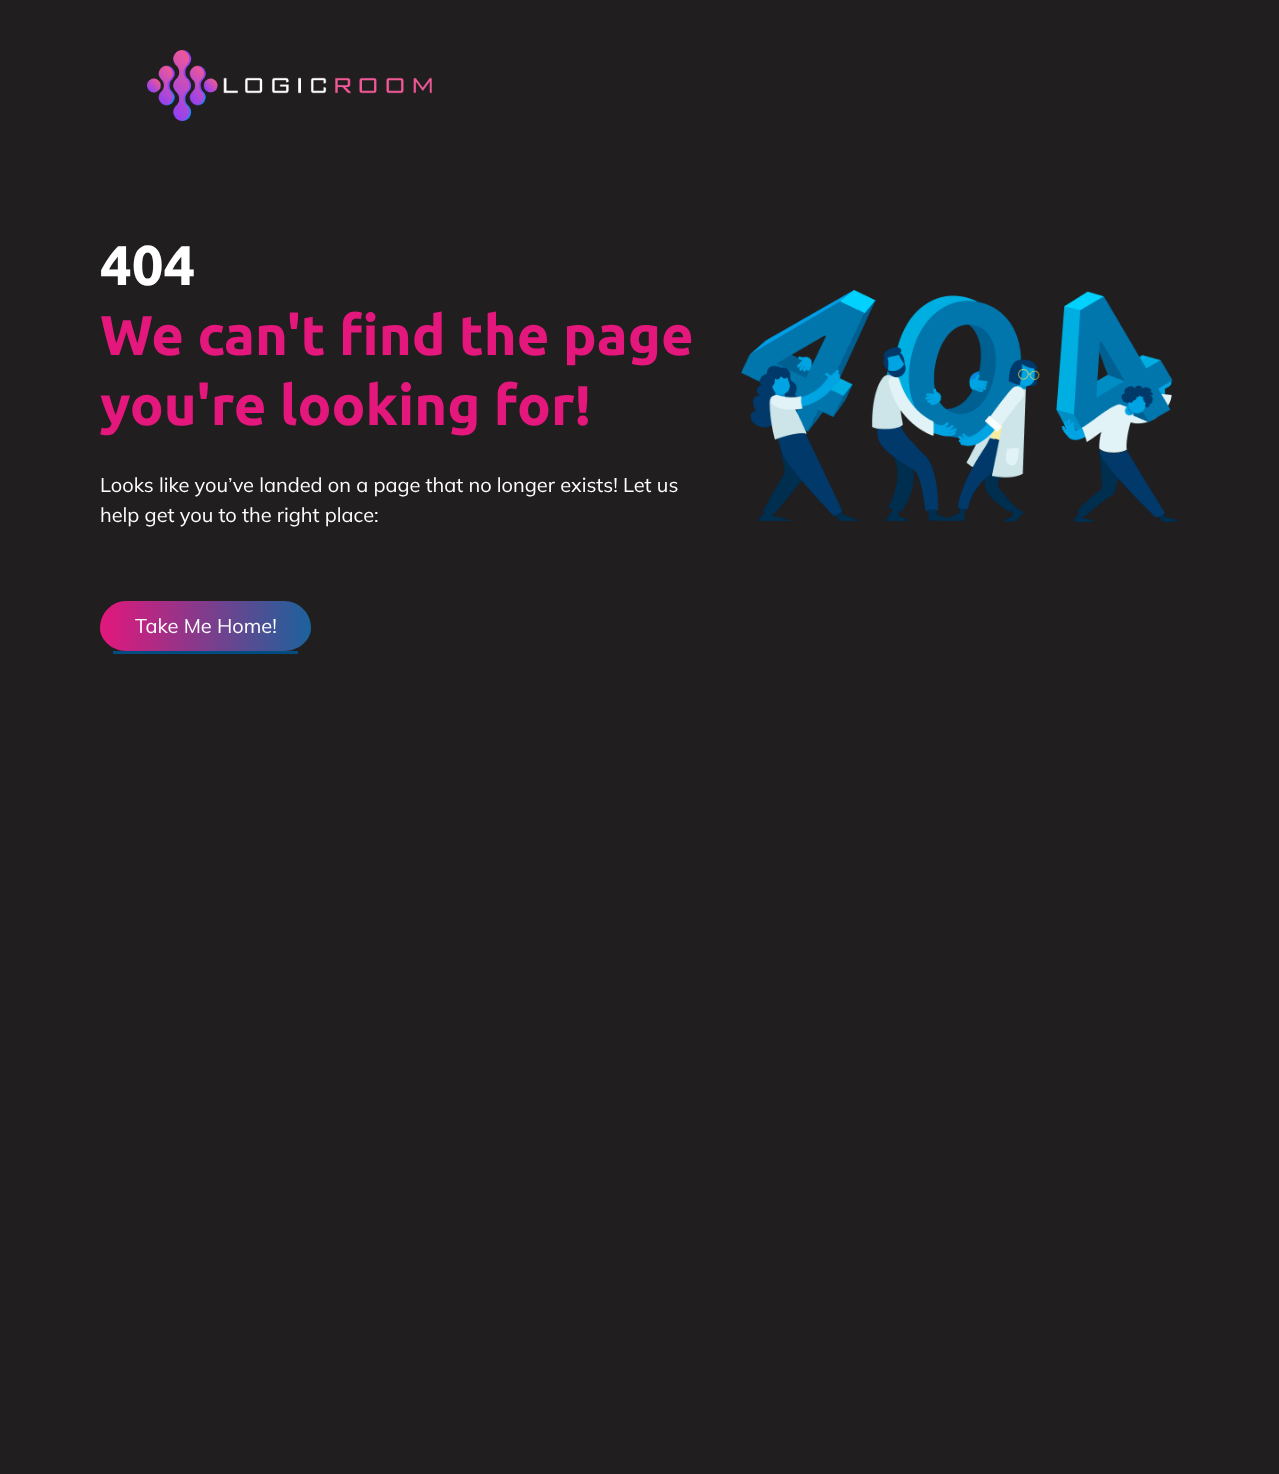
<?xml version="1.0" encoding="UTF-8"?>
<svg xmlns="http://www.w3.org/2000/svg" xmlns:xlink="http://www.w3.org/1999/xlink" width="1279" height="1474">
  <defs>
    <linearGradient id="g1" gradientUnits="userSpaceOnUse" x1="100" y1="626" x2="311" y2="626"><stop offset="0" stop-color="#e3177c" /><stop offset="1" stop-color="#1c629c" /></linearGradient>
  </defs>
  <rect width="100%" height="100%" fill="#201e1e" />
  <image x="147" y="50" width="285" height="71" xlink:href="image1.png" />
  <path d="M 126 601 h 158 c 15 0 27 12 27 27 c 0 12 -12 23 -27 23 h -158 c -14 0 -26 -11 -26 -23 c 0 -15 12 -27 26 -27 z" fill="url(#g1)" />
  <rect x="113" y="651" width="185" height="3" fill="#014d82" />
  <image x="741" y="290" width="438" height="232" xlink:href="image2.png" />
  <text x="100" y="285" style="font-family: Ubuntu; font-size: 56px; font-weight: bold; fill: #ffffff">404</text>
  <text x="100" y="355" style="font-family: Ubuntu; font-size: 56px; font-weight: bold; fill: #e3177c">We can't find the page</text>
  <text x="100" y="425" style="font-family: Ubuntu; font-size: 56px; font-weight: bold; fill: #e3177c">you're looking for!</text>
  <text x="100" y="492" style="font-family: Mulish; font-size: 20px; fill: #ffffff">Looks like you’ve landed on a page that no longer exists! Let us</text>
  <text x="100" y="522" style="font-family: Mulish; font-size: 20px; fill: #ffffff">help get you to the right place:</text>
  <text x="135" y="633" style="font-family: Mulish; font-size: 20px; fill: #ffffff">Take Me Home!</text>
</svg>
